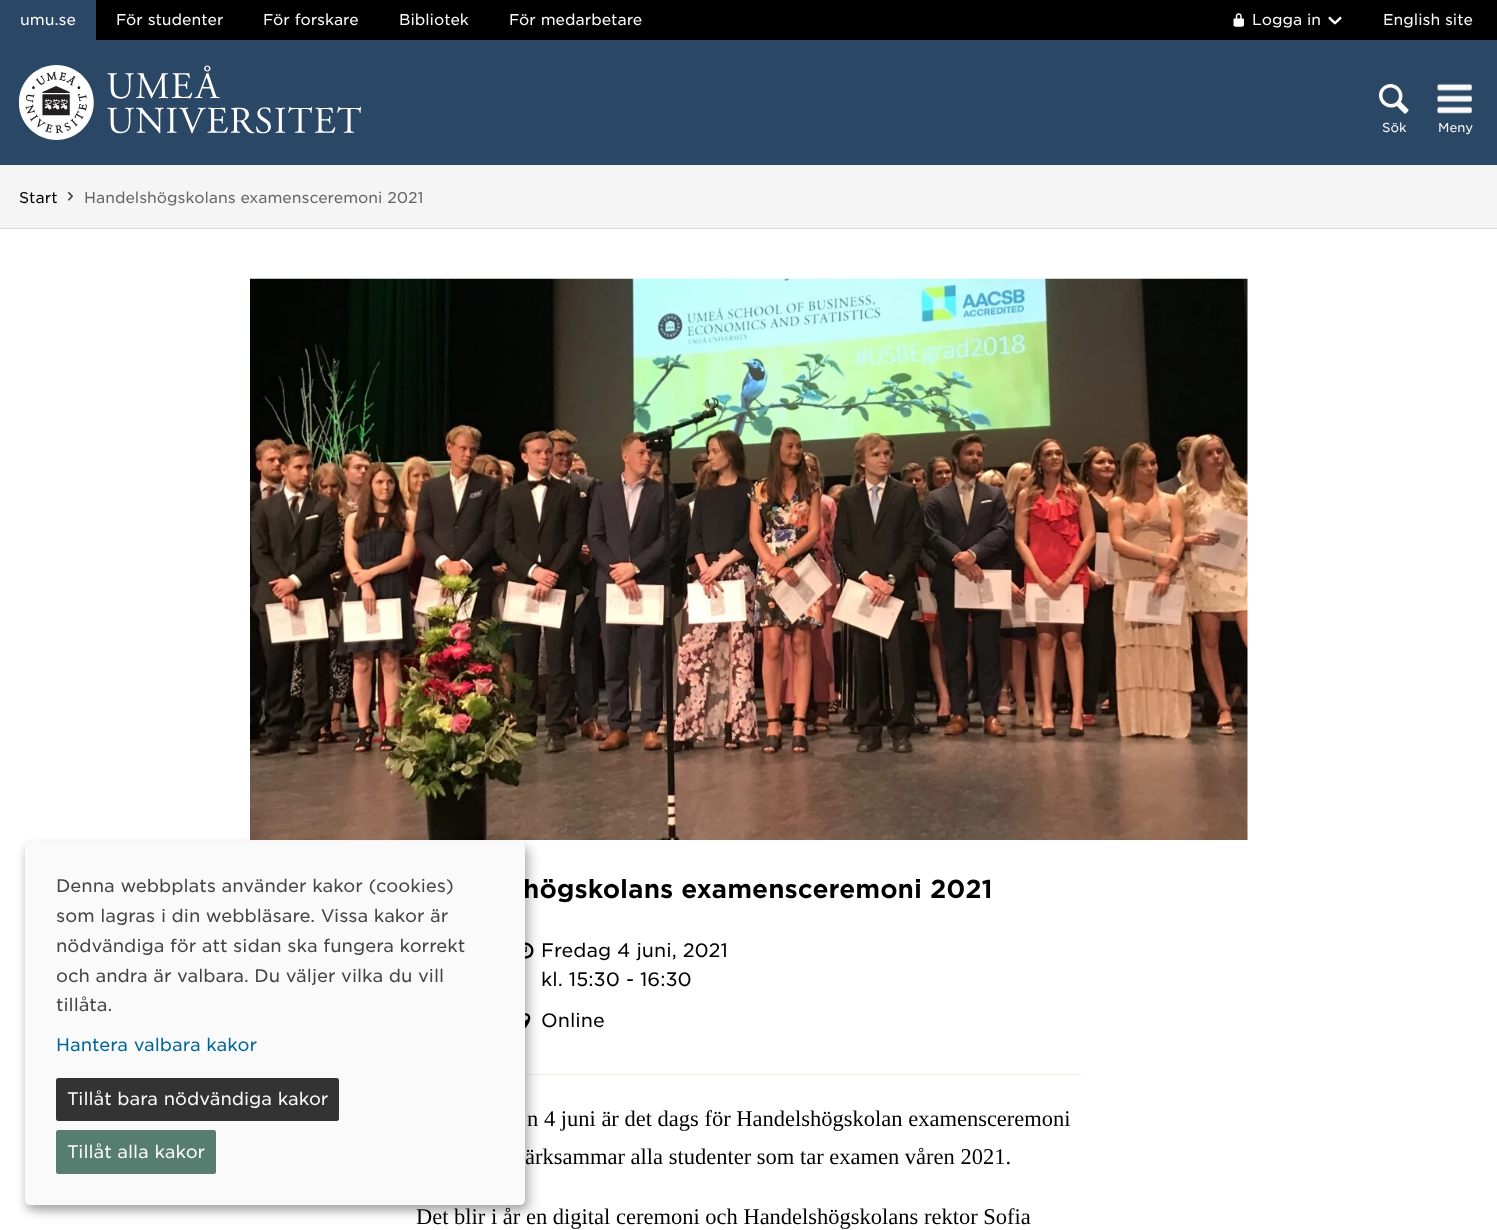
<?xml version="1.0" encoding="UTF-8"?>
<svg xmlns="http://www.w3.org/2000/svg" xmlns:xlink="http://www.w3.org/1999/xlink" width="1497" height="1230">
  <rect width="100%" height="100%" fill="#ffffff" />
  <rect x="96" width="1401" height="40" fill="#000000" />
  <rect width="96" height="40" fill="#2a4765" />
  <image x="1233" y="13" width="11" height="14" xlink:href="image1.png" />
  <image x="1328" y="16" width="14" height="9" xlink:href="image2.png" />
  <rect y="40" width="1497" height="125" fill="#2a4765" />
  <image x="19" y="65" width="342" height="75" xlink:href="image3.png" />
  <image x="1378" y="84" width="31" height="30" xlink:href="image4.png" />
  <image x="1437" y="83" width="35" height="31" xlink:href="image5.png" />
  <rect y="165" width="1497" height="63" fill="#f5f5f5" />
  <rect y="228" width="1497" height="1" fill="#dddddd" />
  <image x="67" y="191" width="6" height="10" xlink:href="image6.png" />
  <image x="250" y="278" width="998" height="562" xlink:href="image7.png" />
  <image x="525" y="942" width="9" height="17" xlink:href="image8.png" />
  <image x="525" y="1013" width="6" height="15" xlink:href="image9.png" />
  <rect x="525" y="1074" width="556" height="1" fill="#f1efe4" />
  <rect x="31" y="848" width="500" height="363" rx="5" fill="#000000" fill-opacity="0.19" filter="blur(6px)" />
  <rect x="25" y="846" width="500" height="364" rx="5" fill="#000000" fill-opacity="0.2" filter="blur(4px)" />
  <text x="20" y="25" style="font-family: 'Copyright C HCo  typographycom'; font-size: 15px; font-weight: 300; fill: #fafafa">umu.se</text>
  <text x="116" y="25" style="font-family: 'Copyright C HCo  typographycom'; font-size: 15px; font-weight: 300; fill: #fafafa">För studenter</text>
  <text x="263" y="25" style="font-family: 'Copyright C HCo  typographycom'; font-size: 15px; font-weight: 300; fill: #fafafa">För forskare</text>
  <text x="399" y="25" style="font-family: 'Copyright C HCo  typographycom'; font-size: 15px; font-weight: 300; fill: #fafafa">Bibliotek</text>
  <text x="509" y="25" style="font-family: 'Copyright C HCo  typographycom'; font-size: 15px; font-weight: 300; fill: #fafafa">För medarbetare</text>
  <text x="1252" y="25" style="font-family: 'Copyright C HCo  typographycom'; font-size: 15px; font-weight: 300; fill: #fafafa">Logga in</text>
  <text x="1383" y="25" style="font-family: 'Copyright C HCo  typographycom'; font-size: 15px; font-weight: 300; fill: #fafafa">English site</text>
  <text x="1382" y="132" style="font-family: 'Copyright C HCo  typographycom'; font-size: 12.5px; font-weight: 300; fill: #fafafa">Sök</text>
  <text x="1438" y="132" style="font-family: 'Copyright C HCo  typographycom'; font-size: 12.5px; font-weight: 300; fill: #fafafa">Meny</text>
  <text x="19" y="203" style="font-family: 'Copyright C HCo  typographycom'; font-size: 15px; font-weight: 300; fill: #000000">Start</text>
  <text x="84" y="203" style="font-family: 'Copyright C HCo  typographycom'; font-size: 15px; font-weight: 300; fill: #666666">Handelshögskolans examensceremoni 2021</text>
  <text x="523" y="898" style="font-family: 'Copyright C HCo  typographycom'; font-size: 25px; fill: #000000">högskolans examensceremoni 2021</text>
  <rect x="25" y="841" width="500" height="364" rx="5" fill="#fafafa" />
  <rect x="56" y="1130" width="160" height="44" rx="2.5" fill="#567d70" />
  <text x="67" y="1158" style="font-family: 'Copyright C HCo  typographycom'; font-size: 17.5px; font-weight: 300; fill: #fafafa">Tillåt alla kakor</text>
  <rect x="56" y="1078" width="283" height="43" rx="2.5" fill="#333333" />
  <text x="67" y="1105" style="font-family: 'Copyright C HCo  typographycom'; font-size: 17.5px; font-weight: 300; fill: #fafafa">Tillåt bara nödvändiga kakor</text>
  <text x="56" y="1051" style="font-family: 'Copyright C HCo  typographycom'; font-size: 17.5px; font-weight: 300; fill: #006699">Hantera valbara kakor</text>
  <text x="56" y="1011" style="font-family: 'Copyright C HCo  typographycom'; font-size: 17.5px; font-weight: 300; fill: #444444">tillåta.</text>
  <text x="56" y="982" style="font-family: 'Copyright C HCo  typographycom'; font-size: 17.5px; font-weight: 300; fill: #444444">och andra är valbara. Du väljer vilka du vill</text>
  <text x="56" y="952" style="font-family: 'Copyright C HCo  typographycom'; font-size: 17.5px; font-weight: 300; fill: #444444">nödvändiga för att sidan ska fungera korrekt</text>
  <text x="56" y="922" style="font-family: 'Copyright C HCo  typographycom'; font-size: 17.5px; font-weight: 300; fill: #444444">som lagras i din webbläsare. Vissa kakor är</text>
  <text x="56" y="892" style="font-family: 'Copyright C HCo  typographycom'; font-size: 17.5px; font-weight: 300; fill: #444444">Denna webbplats använder kakor (cookies)</text>
  <text x="541" y="957" style="font-family: 'Copyright C HCo  typographycom'; font-size: 18.75px; font-weight: 300; fill: #000000">Fredag 4 juni, 2021</text>
  <text x="541" y="986" style="font-family: 'Copyright C HCo  typographycom'; font-size: 18.75px; font-weight: 300; fill: #000000">kl. 15:30 - 16:30</text>
  <text x="541" y="1027" style="font-family: 'Copyright C HCo  typographycom'; font-size: 18.75px; font-weight: 300; fill: #000000">Online</text>
  <text x="527" y="1126" style="font-family: Liberation Serif; font-size: 22.5px; fill: #000000">n 4 juni är det dags för Handelshögskolan examensceremoni</text>
  <text x="525" y="1164" style="font-family: Liberation Serif; font-size: 22.5px; fill: #000000">ärksammar alla studenter som tar examen våren 2021.</text>
  <text x="416" y="1224" style="font-family: Liberation Serif; font-size: 22.5px; fill: #000000">Det blir i år en digital ceremoni och Handelshögskolans rektor Sofia</text>
</svg>
